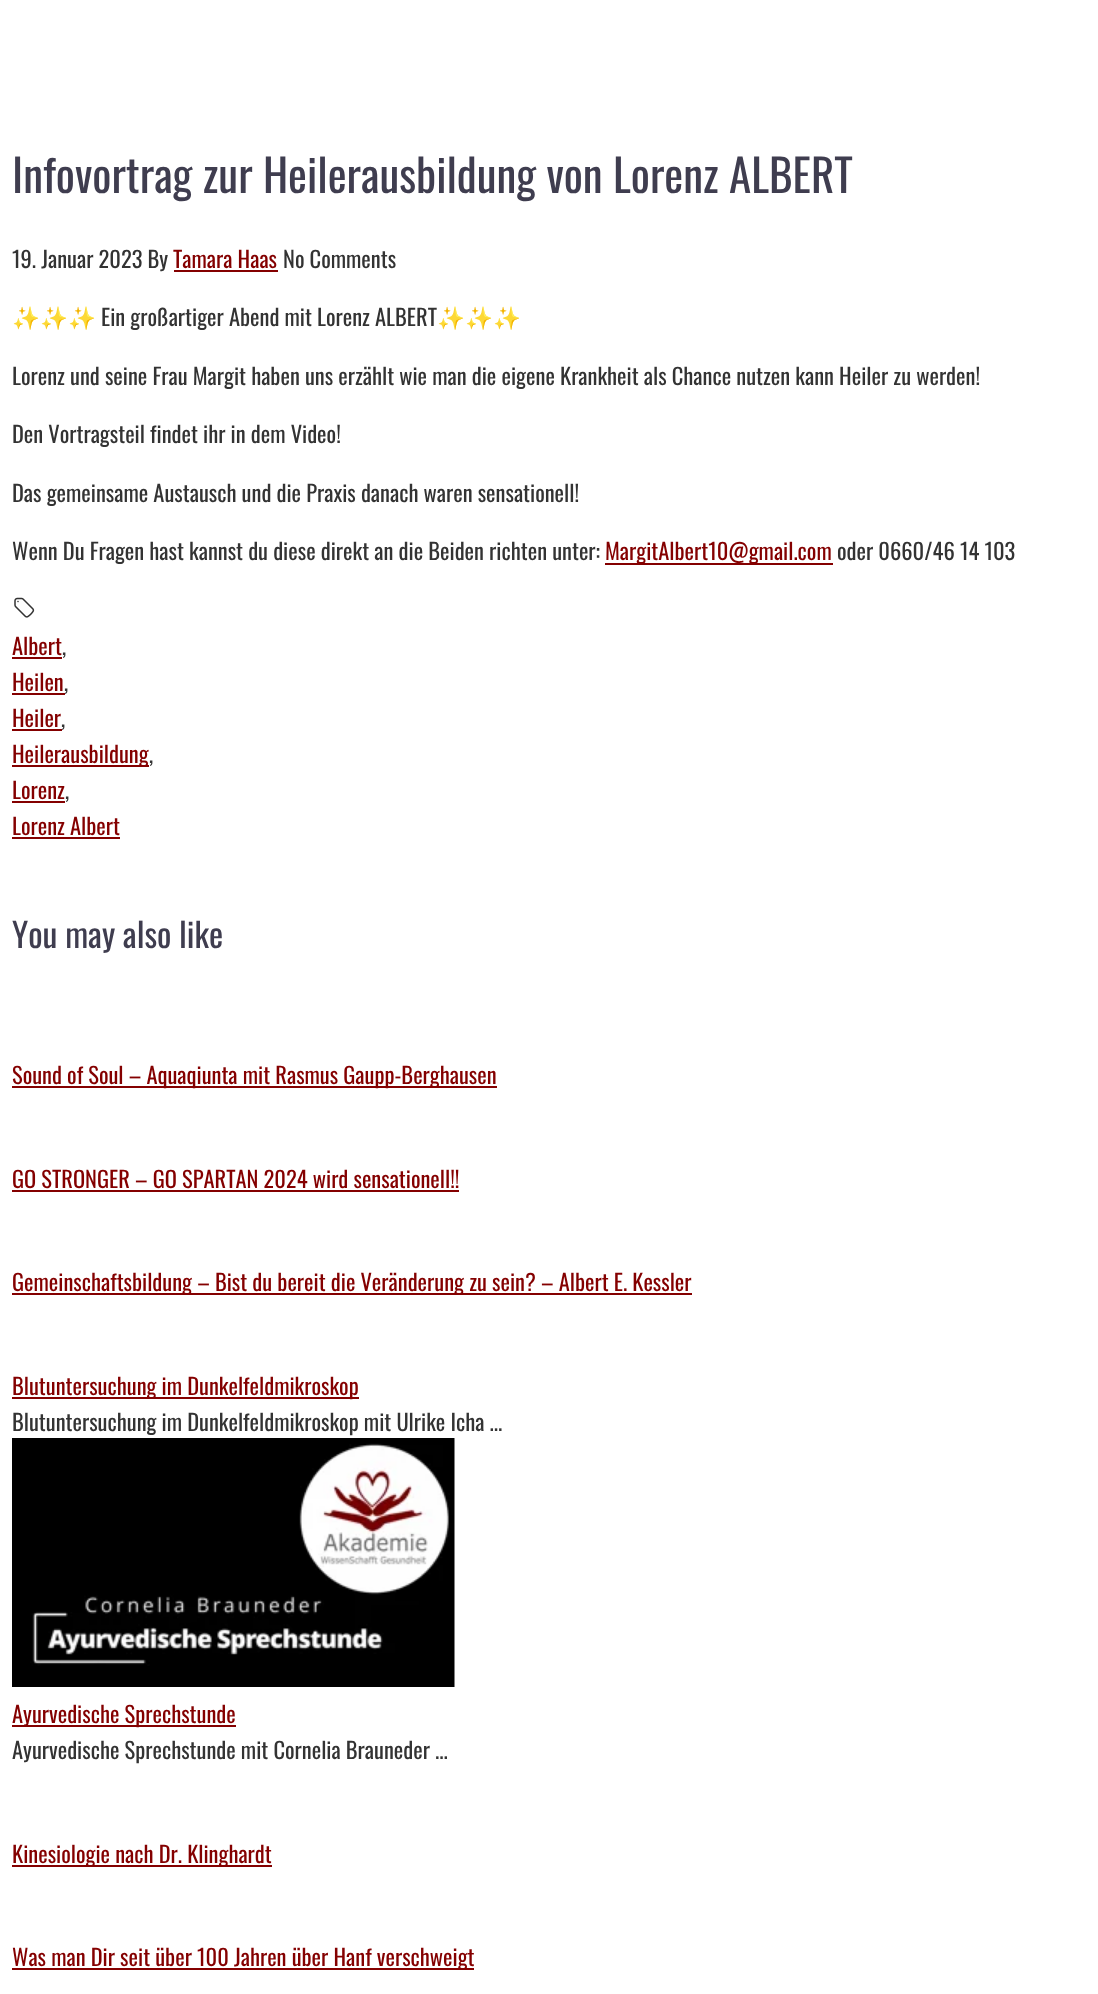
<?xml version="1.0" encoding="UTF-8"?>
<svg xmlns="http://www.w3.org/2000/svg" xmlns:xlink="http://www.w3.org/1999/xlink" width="1098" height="1994">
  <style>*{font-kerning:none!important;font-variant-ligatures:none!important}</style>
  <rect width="100%" height="100%" fill="#ffffff" />
  <rect x="174" y="270" width="104" height="2" fill="#840000" />
  <rect x="605" y="563" width="228" height="2" fill="#840000" />
  <image x="14" y="597" width="21" height="21" xlink:href="image1.png" />
  <rect x="12" y="657" width="50" height="2" fill="#840000" />
  <rect x="12" y="693" width="53" height="2" fill="#840000" />
  <rect x="12" y="729" width="50" height="2" fill="#840000" />
  <rect x="12" y="765" width="137" height="2" fill="#840000" />
  <rect x="12" y="801" width="53" height="2" fill="#840000" />
  <rect x="12" y="837" width="108" height="2" fill="#840000" />
  <rect x="12" y="1086" width="485" height="2" fill="#840000" />
  <rect x="12" y="1190" width="447" height="2" fill="#840000" />
  <rect x="12" y="1293" width="680" height="2" fill="#840000" />
  <rect x="12" y="1397" width="347" height="2" fill="#840000" />
  <image x="12" y="1438" width="443" height="249" xlink:href="image2.png" />
  <rect x="12" y="1725" width="224" height="2" fill="#840000" />
  <rect x="12" y="1865" width="260" height="2" fill="#840000" />
  <rect x="12" y="1968" width="462" height="2" fill="#840000" />
  <text x="12" y="193" style="font-family: Oswald; font-size: 45px; fill: #3f3d4f">Infovortrag zur Heilerausbildung von Lorenz ALBERT</text>
  <text x="12" y="268" style="font-family: Oswald; font-size: 22.5px; fill: #333333">19. Januar 2023 By</text>
  <text x="173" y="268" style="font-family: Oswald; font-size: 22.5px; fill: #840000">Tamara Haas</text>
  <text x="283" y="268" style="font-family: Oswald; font-size: 22.5px; fill: #333333">No Comments</text>
  <text x="12" y="326" style="font-family: Noto Color Emoji; font-size: 22.5px; fill: #333333">✨✨✨</text>
  <text x="101" y="326" style="font-family: Oswald; font-size: 22.5px; fill: #333333">Ein großartiger Abend mit Lorenz ALBERT</text>
  <text x="437" y="326" style="font-family: Noto Color Emoji; font-size: 22.5px; fill: #333333">✨✨✨</text>
  <text x="12" y="385" style="font-family: Oswald; font-size: 22.5px; fill: #333333">Lorenz und seine Frau Margit haben uns erzählt wie man die eigene Krankheit als Chance nutzen kann Heiler zu werden!</text>
  <text x="12" y="443" style="font-family: Oswald; font-size: 22.5px; fill: #333333">Den Vortragsteil findet ihr in dem Video!</text>
  <text x="12" y="502" style="font-family: Oswald; font-size: 22.5px; fill: #333333">Das gemeinsame Austausch und die Praxis danach waren sensationell!</text>
  <text x="12" y="560" style="font-family: Oswald; font-size: 22.5px; fill: #333333">Wenn Du Fragen hast kannst du diese direkt an die Beiden richten unter:</text>
  <text x="605" y="560" style="font-family: Oswald; font-size: 22.5px; fill: #840000">MargitAlbert10@gmail.com</text>
  <text x="837" y="560" style="font-family: Oswald; font-size: 22.5px; fill: #333333">oder 0660/46 14 103</text>
  <text x="12" y="655" style="font-family: Oswald; font-size: 22.5px; fill: #840000">Albert</text>
  <text x="62" y="655" style="font-family: Oswald; font-size: 22.5px; fill: #333333">,</text>
  <text x="12" y="691" style="font-family: Oswald; font-size: 22.5px; fill: #840000">Heilen</text>
  <text x="64" y="691" style="font-family: Oswald; font-size: 22.5px; fill: #333333">,</text>
  <text x="12" y="727" style="font-family: Oswald; font-size: 22.5px; fill: #840000">Heiler</text>
  <text x="61" y="727" style="font-family: Oswald; font-size: 22.5px; fill: #333333">,</text>
  <text x="12" y="763" style="font-family: Oswald; font-size: 22.5px; fill: #840000">Heilerausbildung</text>
  <text x="149" y="763" style="font-family: Oswald; font-size: 22.5px; fill: #333333">,</text>
  <text x="12" y="799" style="font-family: Oswald; font-size: 22.5px; fill: #840000">Lorenz</text>
  <text x="65" y="799" style="font-family: Oswald; font-size: 22.5px; fill: #333333">,</text>
  <text x="12" y="835" style="font-family: Oswald; font-size: 22.5px; fill: #840000">Lorenz Albert</text>
  <text x="12" y="948" style="font-family: Oswald; font-size: 33.75px; fill: #3f3d4f">You may also like</text>
  <text x="12" y="1084" style="font-family: Oswald; font-size: 22.5px; fill: #840000">Sound of Soul – Aquaqiunta mit Rasmus Gaupp-Berghausen</text>
  <text x="12" y="1188" style="font-family: Oswald; font-size: 22.5px; fill: #840000">GO STRONGER – GO SPARTAN 2024 wird sensationell!!</text>
  <text x="12" y="1291" style="font-family: Oswald; font-size: 22.5px; fill: #840000">Gemeinschaftsbildung – Bist du bereit die Veränderung zu sein? – Albert E. Kessler</text>
  <text x="12" y="1395" style="font-family: Oswald; font-size: 22.5px; fill: #840000">Blutuntersuchung im Dunkelfeldmikroskop</text>
  <text x="12" y="1431" style="font-family: Oswald; font-size: 22.5px; fill: #333333">Blutuntersuchung im Dunkelfeldmikroskop mit Ulrike Icha ...</text>
  <text x="12" y="1723" style="font-family: Oswald; font-size: 22.5px; fill: #840000">Ayurvedische Sprechstunde</text>
  <text x="12" y="1759" style="font-family: Oswald; font-size: 22.5px; fill: #333333">Ayurvedische Sprechstunde mit Cornelia Brauneder ...</text>
  <text x="12" y="1863" style="font-family: Oswald; font-size: 22.5px; fill: #840000">Kinesiologie nach Dr. Klinghardt</text>
  <text x="12" y="1966" style="font-family: Oswald; font-size: 22.5px; fill: #840000">Was man Dir seit über 100 Jahren über Hanf verschweigt</text>
</svg>
